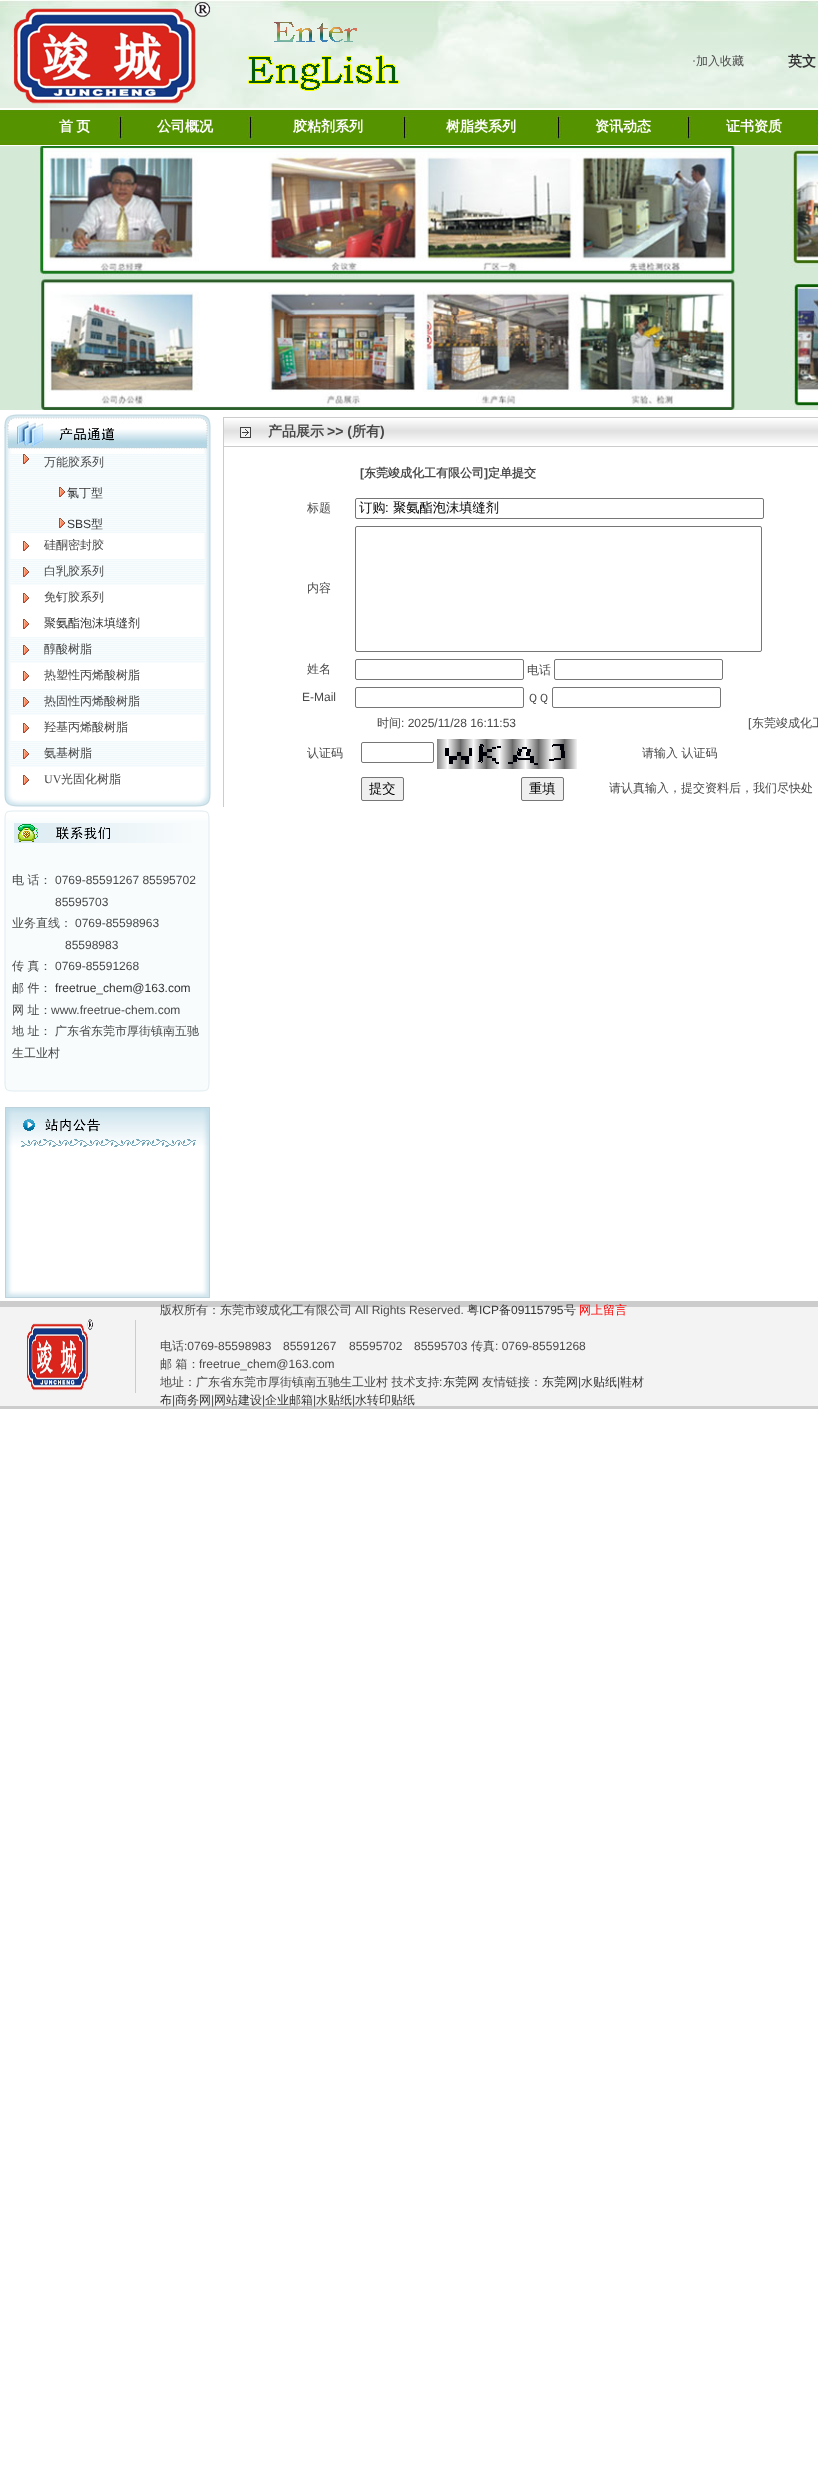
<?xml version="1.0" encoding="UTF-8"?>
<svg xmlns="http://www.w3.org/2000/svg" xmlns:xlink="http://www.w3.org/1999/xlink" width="818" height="2481">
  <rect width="100%" height="100%" fill="#ffffff" />
  <image x="0" y="0" width="818" height="108" xlink:href="image1.png" />
  <image x="11" y="2" width="200" height="102" xlink:href="image2.png" />
  <image x="248" y="22" width="151" height="69" xlink:href="image3.png" />
  <image x="0" y="108" width="818" height="37" xlink:href="image4.png" />
  <image x="117" y="116" width="8" height="24" xlink:href="image5.png" />
  <image x="247" y="116" width="8" height="24" xlink:href="image5.png" />
  <image x="401" y="116" width="8" height="24" xlink:href="image5.png" />
  <image x="555" y="116" width="8" height="24" xlink:href="image5.png" />
  <image x="685" y="116" width="8" height="24" xlink:href="image5.png" />
  <image x="816" y="116" width="2" height="24" xlink:href="image6.png" />
  <image x="0" y="146" width="818" height="264" xlink:href="image7.png" />
  <image x="4" y="414" width="207" height="40" xlink:href="image8.png" />
  <image x="4" y="454" width="207" height="79" xlink:href="image9.png" />
  <image x="23" y="454" width="6" height="10" xlink:href="image10.png" />
  <image x="59" y="487" width="6" height="10" xlink:href="image11.png" />
  <image x="59" y="518" width="6" height="10" xlink:href="image10.png" />
  <image x="4" y="533" width="207" height="26" xlink:href="image12.png" />
  <image x="23" y="541" width="6" height="10" xlink:href="image13.png" />
  <image x="4" y="559" width="207" height="26" xlink:href="image14.png" />
  <image x="23" y="567" width="6" height="10" xlink:href="image10.png" />
  <image x="4" y="585" width="207" height="26" xlink:href="image12.png" />
  <image x="23" y="593" width="6" height="10" xlink:href="image13.png" />
  <image x="4" y="611" width="207" height="26" xlink:href="image12.png" />
  <image x="23" y="619" width="6" height="10" xlink:href="image13.png" />
  <image x="4" y="637" width="207" height="26" xlink:href="image14.png" />
  <image x="23" y="645" width="6" height="10" xlink:href="image10.png" />
  <image x="4" y="663" width="207" height="26" xlink:href="image12.png" />
  <image x="23" y="671" width="6" height="10" xlink:href="image13.png" />
  <image x="4" y="689" width="207" height="26" xlink:href="image14.png" />
  <image x="23" y="697" width="6" height="10" xlink:href="image10.png" />
  <image x="4" y="715" width="207" height="26" xlink:href="image12.png" />
  <image x="23" y="723" width="6" height="10" xlink:href="image13.png" />
  <image x="4" y="741" width="207" height="26" xlink:href="image14.png" />
  <image x="23" y="749" width="6" height="10" xlink:href="image10.png" />
  <image x="4" y="767" width="207" height="26" xlink:href="image12.png" />
  <image x="23" y="775" width="6" height="10" xlink:href="image13.png" />
  <image x="4" y="793" width="207" height="14" xlink:href="image15.png" />
  <image x="4" y="810" width="206" height="43" xlink:href="image16.png" />
  <image x="4" y="853" width="206" height="228" xlink:href="image17.png" />
  <image x="4" y="1081" width="206" height="11" xlink:href="image18.png" />
  <image x="5" y="1106" width="205" height="44" xlink:href="image19.png" />
  <image x="5" y="1150" width="205" height="136" xlink:href="image20.png" />
  <image x="5" y="1286" width="205" height="12" xlink:href="image21.png" />
  <image x="223" y="417" width="31" height="37" xlink:href="image22.png" />
  <image x="254" y="417" width="564" height="30" xlink:href="image23.png" />
  <rect x="223" y="454" width="1" height="353" fill="#cccccc" />
  <rect x="355.5" y="498.5" width="408" height="20" rx="1.5" fill="none" stroke="#767676" />
  <rect x="355.5" y="526.5" width="406" height="125" rx="1.5" fill="none" stroke="#767676" />
  <rect x="355.5" y="659.5" width="168" height="20" rx="1.5" fill="none" stroke="#767676" />
  <rect x="554.5" y="659.5" width="168" height="20" rx="1.5" fill="none" stroke="#767676" />
  <rect x="355.5" y="687.5" width="168" height="20" rx="1.5" fill="none" stroke="#767676" />
  <rect x="552.5" y="687.5" width="168" height="20" rx="1.5" fill="none" stroke="#767676" />
  <rect x="361.5" y="742.5" width="72" height="20" rx="1.5" fill="none" stroke="#767676" />
  <image x="437" y="739" width="140" height="30" xlink:href="image24.png" />
  <rect x="361.5" y="777.5" width="42" height="23" rx="1.5" fill="#efefef" stroke="#767676" />
  <rect x="521.5" y="777.5" width="42" height="23" rx="1.5" fill="#efefef" stroke="#767676" />
  <image x="0" y="1301" width="818" height="108" xlink:href="image25.png" />
  <image x="26" y="1319" width="67" height="72" xlink:href="image26.png" />
  <rect x="135" y="1320" width="1" height="73" fill="#cccccc" />
  <text x="692" y="65" style="font-family: Liberation Serif; font-size: 12px; fill: #494949">·</text>
  <text x="696" y="65" style="font-family: WenQuanYi Zen Hei; font-size: 12px; font-weight: 500; fill: #494949">加入收藏</text>
  <text x="788" y="66" style="font-family: WenQuanYi Zen Hei; font-size: 14px; font-weight: bold; fill: #333333">英文</text>
  <text x="59" y="131" word-spacing="-1" style="font-family: WenQuanYi Zen Hei; font-size: 14px; font-weight: bold; fill: #ffffff">首 页</text>
  <text x="157" y="131" style="font-family: WenQuanYi Zen Hei; font-size: 14px; font-weight: bold; fill: #ffffff">公司概况</text>
  <text x="293" y="131" style="font-family: WenQuanYi Zen Hei; font-size: 14px; font-weight: bold; fill: #ffffff">胶粘剂系列</text>
  <text x="446" y="131" style="font-family: WenQuanYi Zen Hei; font-size: 14px; font-weight: bold; fill: #ffffff">树脂类系列</text>
  <text x="595" y="131" style="font-family: WenQuanYi Zen Hei; font-size: 14px; font-weight: bold; fill: #ffffff">资讯动态</text>
  <text x="726" y="131" style="font-family: WenQuanYi Zen Hei; font-size: 14px; font-weight: bold; fill: #ffffff">证书资质</text>
  <text x="44" y="466" style="font-family: WenQuanYi Zen Hei; font-size: 12px; font-weight: 500; fill: #494949">万能胶系列</text>
  <text x="67" y="497" style="font-family: WenQuanYi Zen Hei; font-size: 12px; font-weight: 500; fill: #333333">氯丁型</text>
  <text x="67" y="528" style="font-family: Liberation Sans; font-size: 12px; fill: #333333">SBS</text>
  <text x="91" y="528" style="font-family: WenQuanYi Zen Hei; font-size: 12px; font-weight: 500; fill: #333333">型</text>
  <text x="44" y="549" style="font-family: WenQuanYi Zen Hei; font-size: 12px; font-weight: 500; fill: #494949">硅酮密封胶</text>
  <text x="44" y="575" style="font-family: WenQuanYi Zen Hei; font-size: 12px; font-weight: 500; fill: #494949">白乳胶系列</text>
  <text x="44" y="601" style="font-family: WenQuanYi Zen Hei; font-size: 12px; font-weight: 500; fill: #494949">免钉胶系列</text>
  <text x="44" y="627" style="font-family: WenQuanYi Zen Hei; font-size: 12px; font-weight: 500; fill: #333333">聚氨酯泡沫填缝剂</text>
  <text x="44" y="653" style="font-family: WenQuanYi Zen Hei; font-size: 12px; font-weight: 500; fill: #494949">醇酸树脂</text>
  <text x="44" y="679" style="font-family: WenQuanYi Zen Hei; font-size: 12px; font-weight: 500; fill: #494949">热塑性丙烯酸树脂</text>
  <text x="44" y="705" style="font-family: WenQuanYi Zen Hei; font-size: 12px; font-weight: 500; fill: #494949">热固性丙烯酸树脂</text>
  <text x="44" y="731" style="font-family: WenQuanYi Zen Hei; font-size: 12px; font-weight: 500; fill: #494949">羟基丙烯酸树脂</text>
  <text x="44" y="757" style="font-family: WenQuanYi Zen Hei; font-size: 12px; font-weight: 500; fill: #494949">氨基树脂</text>
  <text x="44" y="783" style="font-family: Liberation Serif; font-size: 12px; fill: #494949">UV</text>
  <text x="61" y="783" style="font-family: WenQuanYi Zen Hei; font-size: 12px; font-weight: 500; fill: #494949">光固化树脂</text>
  <text x="12" y="884" style="font-family: WenQuanYi Zen Hei; font-size: 12px; font-weight: 500; fill: #494949">电 话：</text>
  <text x="55" y="884" style="font-family: Liberation Sans; font-size: 12px; fill: #494949">0769-85591267 85595702</text>
  <text x="55" y="906" style="font-family: Liberation Sans; font-size: 12px; fill: #494949">85595703</text>
  <text x="12" y="927" style="font-family: WenQuanYi Zen Hei; font-size: 12px; font-weight: 500; fill: #494949">业务直线：</text>
  <text x="75" y="927" style="font-family: Liberation Sans; font-size: 12px; fill: #494949">0769-85598963</text>
  <text x="65" y="949" style="font-family: Liberation Sans; font-size: 12px; fill: #494949">85598983</text>
  <text x="12" y="970" style="font-family: WenQuanYi Zen Hei; font-size: 12px; font-weight: 500; fill: #494949">传 真：</text>
  <text x="55" y="970" style="font-family: Liberation Sans; font-size: 12px; fill: #494949">0769-85591268</text>
  <text x="12" y="992" style="font-family: WenQuanYi Zen Hei; font-size: 12px; font-weight: 500; fill: #494949">邮 件：</text>
  <text x="55" y="992" style="font-family: Liberation Sans; font-size: 12px; fill: #333333">freetrue_chem@163.com</text>
  <text x="12" y="1014" style="font-family: WenQuanYi Zen Hei; font-size: 12px; font-weight: 500; fill: #494949">网 址：</text>
  <text x="51" y="1014" style="font-family: Liberation Sans; font-size: 12px; fill: #494949">www.freetrue-chem.com</text>
  <text x="12" y="1035" style="font-family: WenQuanYi Zen Hei; font-size: 12px; font-weight: 500; fill: #494949">地 址：</text>
  <text x="55" y="1035" style="font-family: WenQuanYi Zen Hei; font-size: 12px; font-weight: 500; fill: #494949">广东省东莞市厚街镇南五驰</text>
  <text x="12" y="1057" style="font-family: WenQuanYi Zen Hei; font-size: 12px; font-weight: 500; fill: #494949">生工业村</text>
  <text x="268" y="436" style="font-family: WenQuanYi Zen Hei; font-size: 14px; font-weight: bold; fill: #494949">产品展示</text>
  <text x="327" y="436" style="font-family: Liberation Sans; font-size: 14px; font-weight: bold; fill: #494949">&gt;&gt; (</text>
  <text x="352" y="436" style="font-family: WenQuanYi Zen Hei; font-size: 14px; font-weight: bold; fill: #494949">所有</text>
  <text x="380" y="436" style="font-family: Liberation Sans; font-size: 14px; font-weight: bold; fill: #494949">)</text>
  <text x="360" y="477" style="font-family: Liberation Sans; font-size: 12px; font-weight: bold; fill: #494949">[</text>
  <text x="364" y="477" style="font-family: WenQuanYi Zen Hei; font-size: 12px; font-weight: bold; fill: #494949">东莞竣成化工有限公司</text>
  <text x="484" y="477" style="font-family: Liberation Sans; font-size: 12px; font-weight: bold; fill: #494949">]</text>
  <text x="488" y="477" style="font-family: WenQuanYi Zen Hei; font-size: 12px; font-weight: bold; fill: #494949">定单提交</text>
  <text x="307" y="512" style="font-family: WenQuanYi Zen Hei; font-size: 12px; font-weight: 500; fill: #494949">标题</text>
  <text x="359" y="512" style="font-family: WenQuanYi Zen Hei; font-size: 13.25px; font-weight: 500; fill: #000000">订购</text>
  <text x="385" y="512" style="font-family: Liberation Sans; font-size: 13.25px; fill: #000000">:</text>
  <text x="393" y="512" style="font-family: WenQuanYi Zen Hei; font-size: 13.25px; font-weight: 500; fill: #000000">聚氨酯泡沫填缝剂</text>
  <text x="307" y="592" style="font-family: WenQuanYi Zen Hei; font-size: 12px; font-weight: 500; fill: #494949">内容</text>
  <text x="307" y="673" style="font-family: WenQuanYi Zen Hei; font-size: 12px; font-weight: 500; fill: #494949">姓名</text>
  <text x="527" y="674" style="font-family: WenQuanYi Zen Hei; font-size: 12px; font-weight: 500; fill: #494949">电话</text>
  <text x="302" y="701" style="font-family: Liberation Sans; font-size: 12px; fill: #494949">E-Mail</text>
  <text x="527" y="702" style="font-family: WenQuanYi Zen Hei; font-size: 12px; font-weight: 500; fill: #494949">ＱＱ</text>
  <text x="377" y="727" style="font-family: WenQuanYi Zen Hei; font-size: 12px; font-weight: 500; fill: #494949">时间</text>
  <text x="401" y="727" style="font-family: Liberation Sans; font-size: 12px; fill: #494949">: 2025/11/28 16:11:53</text>
  <text x="748" y="727" style="font-family: Liberation Sans; font-size: 12px; fill: #494949">[</text>
  <text x="752" y="727" style="font-family: WenQuanYi Zen Hei; font-size: 12px; font-weight: 500; fill: #494949">东莞竣成化工</text>
  <text x="307" y="757" style="font-family: WenQuanYi Zen Hei; font-size: 12px; font-weight: 500; fill: #494949">认证码</text>
  <text x="642" y="757" style="font-family: WenQuanYi Zen Hei; font-size: 12px; font-weight: 500; fill: #494949">请输入 认证码</text>
  <text x="369" y="793" style="font-family: WenQuanYi Zen Hei; font-size: 13.25px; font-weight: 500; fill: #000000">提交</text>
  <text x="529" y="793" style="font-family: WenQuanYi Zen Hei; font-size: 13.25px; font-weight: 500; fill: #000000">重填</text>
  <text x="609" y="792" style="font-family: WenQuanYi Zen Hei; font-size: 12px; font-weight: 500; fill: #494949">请认真输入，提交资料后，我们尽快处</text>
  <text x="160" y="1314" style="font-family: WenQuanYi Zen Hei; font-size: 12px; font-weight: 500; fill: #494949">版权所有：东莞市竣成化工有限公司</text>
  <text x="355" y="1314" style="font-family: Liberation Sans; font-size: 12px; fill: #494949">All Rights Reserved.</text>
  <text x="467" y="1314" style="font-family: WenQuanYi Zen Hei; font-size: 12px; font-weight: 500; fill: #333333">粤</text>
  <text x="479" y="1314" style="font-family: Liberation Sans; font-size: 12px; fill: #333333">ICP</text>
  <text x="499" y="1314" style="font-family: WenQuanYi Zen Hei; font-size: 12px; font-weight: 500; fill: #333333">备</text>
  <text x="511" y="1314" style="font-family: Liberation Sans; font-size: 12px; fill: #333333">09115795</text>
  <text x="564" y="1314" style="font-family: WenQuanYi Zen Hei; font-size: 12px; font-weight: 500; fill: #333333">号</text>
  <text x="579" y="1314" style="font-family: WenQuanYi Zen Hei; font-size: 12px; font-weight: 500; fill: #ff0000">网上留言</text>
  <text x="160" y="1350" style="font-family: WenQuanYi Zen Hei; font-size: 12px; font-weight: 500; fill: #494949">电话</text>
  <text x="184" y="1350" style="font-family: Liberation Sans; font-size: 12px; fill: #494949">:0769-85598983</text>
  <text x="283" y="1350" style="font-family: Liberation Sans; font-size: 12px; fill: #494949">85591267</text>
  <text x="349" y="1350" style="font-family: Liberation Sans; font-size: 12px; fill: #494949">85595702</text>
  <text x="414" y="1350" style="font-family: Liberation Sans; font-size: 12px; fill: #494949">85595703</text>
  <text x="471" y="1350" style="font-family: WenQuanYi Zen Hei; font-size: 12px; font-weight: 500; fill: #494949">传真</text>
  <text x="495" y="1350" style="font-family: Liberation Sans; font-size: 12px; fill: #494949">: 0769-85591268</text>
  <text x="160" y="1368" style="font-family: WenQuanYi Zen Hei; font-size: 12px; font-weight: 500; fill: #494949">邮 箱：</text>
  <text x="199" y="1368" style="font-family: Liberation Sans; font-size: 12px; fill: #494949">freetrue_chem@163.com</text>
  <text x="160" y="1386" style="font-family: WenQuanYi Zen Hei; font-size: 12px; font-weight: 500; fill: #494949">地址：广东省东莞市厚街镇南五驰生工业村 技术支持</text>
  <text x="439" y="1386" style="font-family: Liberation Sans; font-size: 12px; fill: #494949">:</text>
  <text x="443" y="1386" style="font-family: WenQuanYi Zen Hei; font-size: 12px; font-weight: 500; fill: #333333">东莞网</text>
  <text x="482" y="1386" style="font-family: WenQuanYi Zen Hei; font-size: 12px; font-weight: 500; fill: #494949">友情链接：</text>
  <text x="542" y="1386" style="font-family: WenQuanYi Zen Hei; font-size: 12px; font-weight: 500; fill: #333333">东莞网</text>
  <text x="578" y="1386" style="font-family: Liberation Sans; font-size: 12px; fill: #494949">|</text>
  <text x="581" y="1386" style="font-family: WenQuanYi Zen Hei; font-size: 12px; font-weight: 500; fill: #333333">水贴纸</text>
  <text x="617" y="1386" style="font-family: Liberation Sans; font-size: 12px; fill: #494949">|</text>
  <text x="620" y="1386" style="font-family: WenQuanYi Zen Hei; font-size: 12px; font-weight: 500; fill: #333333">鞋材</text>
  <text x="160" y="1404" style="font-family: WenQuanYi Zen Hei; font-size: 12px; font-weight: 500; fill: #333333">布</text>
  <text x="172" y="1404" style="font-family: Liberation Sans; font-size: 12px; fill: #494949">|</text>
  <text x="175" y="1404" style="font-family: WenQuanYi Zen Hei; font-size: 12px; font-weight: 500; fill: #333333">商务网</text>
  <text x="211" y="1404" style="font-family: Liberation Sans; font-size: 12px; fill: #494949">|</text>
  <text x="214" y="1404" style="font-family: WenQuanYi Zen Hei; font-size: 12px; font-weight: 500; fill: #333333">网站建设</text>
  <text x="262" y="1404" style="font-family: Liberation Sans; font-size: 12px; fill: #494949">|</text>
  <text x="265" y="1404" style="font-family: WenQuanYi Zen Hei; font-size: 12px; font-weight: 500; fill: #333333">企业邮箱</text>
  <text x="313" y="1404" style="font-family: Liberation Sans; font-size: 12px; fill: #494949">|</text>
  <text x="316" y="1404" style="font-family: WenQuanYi Zen Hei; font-size: 12px; font-weight: 500; fill: #333333">水贴纸</text>
  <text x="352" y="1404" style="font-family: Liberation Sans; font-size: 12px; fill: #494949">|</text>
  <text x="355" y="1404" style="font-family: WenQuanYi Zen Hei; font-size: 12px; font-weight: 500; fill: #333333">水转印贴纸</text>
</svg>
